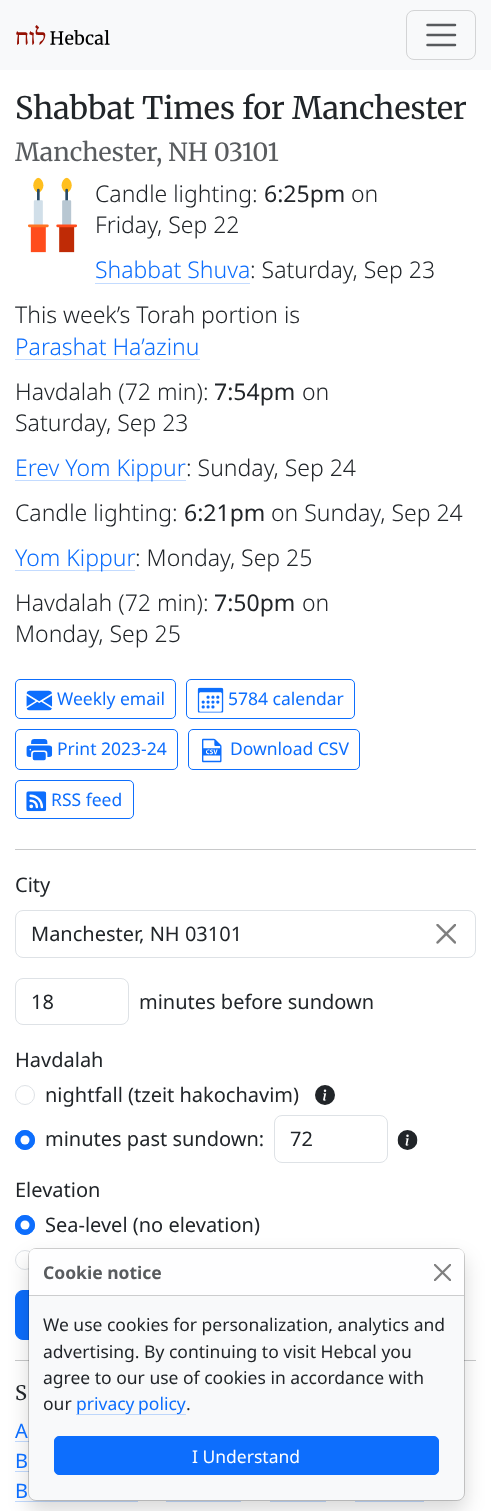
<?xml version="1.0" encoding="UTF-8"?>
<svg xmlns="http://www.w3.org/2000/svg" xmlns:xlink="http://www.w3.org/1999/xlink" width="491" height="1511">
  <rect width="100%" height="100%" fill="#ffffff" />
  <rect width="491" height="70" fill="#f8f9fa" />
  <image x="16" y="25" width="94" height="20" xlink:href="image1.png" />
  <rect x="406.5" y="10.5" width="69" height="49" rx="7.5" fill="none" stroke="#d3d4d5" />
  <path d="M 427.5 25 h 27.5 m -27.5 10 h 27.5 m -27.5 10 h 27.5" fill="none" stroke="#575a5d" stroke-width="2.5" stroke-linecap="round" />
  <image x="28" y="177" width="49" height="76" xlink:href="image2.png" />
  <rect x="95" y="283" width="155" height="1" fill="#c3dbff" />
  <rect x="15" y="359" width="185" height="1" fill="#c3dbff" />
  <rect x="15" y="480" width="171" height="1" fill="#c3dbff" />
  <rect x="15" y="570" width="120" height="1" fill="#c3dbff" />
  <rect x="15.5" y="679.5" width="160" height="39" rx="4.5" fill="none" stroke="#0d6efd" />
  <image x="26" y="690" width="27" height="21" xlink:href="image3.png" />
  <rect x="186.5" y="679.5" width="168" height="39" rx="4.5" fill="none" stroke="#0d6efd" />
  <image x="197" y="687" width="27" height="26" xlink:href="image4.png" />
  <rect x="15.5" y="729.5" width="162" height="40" rx="4.5" fill="none" stroke="#0d6efd" />
  <image x="26" y="739" width="27" height="22" xlink:href="image5.png" />
  <rect x="188.5" y="729.5" width="171" height="40" rx="4.5" fill="none" stroke="#0d6efd" />
  <image x="202" y="738" width="20" height="25" xlink:href="image6.png" />
  <rect x="15.5" y="780.5" width="118" height="38" rx="4.5" fill="none" stroke="#0d6efd" />
  <image x="26" y="791" width="21" height="21" xlink:href="image7.png" />
  <rect x="15" y="849" width="461" height="1" fill="#c8c9ca" />
  <rect x="15.5" y="910.5" width="460" height="47" rx="7.5" fill="none" stroke="#dee2e6" />
  <image x="436" y="924" width="20" height="20" xlink:href="image8.png" />
  <rect x="15.5" y="978.5" width="113" height="46" rx="7.5" fill="none" stroke="#dee2e6" />
  <circle cx="25" cy="1095" r="9.5" fill="none" stroke="#dee2e6" />
  <image x="315" y="1085" width="20" height="20" xlink:href="image9.png" />
  <circle cx="25" cy="1140" r="10" fill="#0d6efd" />
  <circle cx="25" cy="1140" r="4.5" fill="#ffffff" />
  <circle cx="25" cy="1140" r="9.5" fill="none" stroke="#0d6efd" />
  <rect x="274.5" y="1115.5" width="113" height="47" rx="7.5" fill="none" stroke="#dee2e6" />
  <image x="397" y="1130" width="21" height="20" xlink:href="image10.png" />
  <circle cx="25" cy="1225" r="10" fill="#0d6efd" />
  <circle cx="25" cy="1225" r="4.5" fill="#ffffff" />
  <circle cx="25" cy="1225" r="9.5" fill="none" stroke="#0d6efd" />
  <circle cx="25" cy="1260" r="9.5" fill="none" stroke="#dee2e6" />
  <rect x="15.5" y="1290.5" width="239" height="49" rx="7.5" fill="#0d6efd" stroke="#0d6efd" />
  <rect x="15" y="1360" width="461" height="1" fill="#c8c9ca" />
  <rect x="15" y="1441" width="14" height="1" fill="#c3dbff" />
  <rect x="15" y="1471" width="14" height="1" fill="#c3dbff" />
  <rect x="15" y="1501" width="123" height="1" fill="#c3dbff" />
  <rect x="166" y="1501" width="75" height="1" fill="#c3dbff" />
  <rect x="270" y="1501" width="56" height="1" fill="#c3dbff" />
  <rect x="355" y="1501" width="69" height="1" fill="#c3dbff" />
  <rect x="28" y="1258" width="437" height="253" rx="8" fill="#000000" fill-opacity="0.15" filter="blur(10px)" />
  <rect x="29" y="1249" width="435" height="251" rx="6" fill="#f8f9fa" />
  <rect x="28.5" y="1248.5" width="436" height="252" rx="7.5" fill="none" stroke="#000000" stroke-opacity="0.18" />
  <path d="M 35 1249 h 423 c 3.5 0 6 2.5 6 6 v 40 h -435 v -40 c 0 -3.5 2.5 -6 6 -6 z" fill="#ffffff" fill-opacity="0.85" />
  <rect x="29" y="1295" width="435" height="1" fill="#cccdce" />
  <image x="434" y="1264" width="17" height="17" xlink:href="image11.png" />
  <rect x="76" y="1414" width="110" height="1" fill="#bdd6fb" />
  <rect x="54.5" y="1436.5" width="384" height="38" rx="4.5" fill="#0d6efd" stroke="#0d6efd" />
  <text x="15" y="119" style="font-family: Merriweather; font-size: 30.9px; fill: #212529">Shabbat Times for Manchester</text>
  <text x="15" y="161" style="font-family: 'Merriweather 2'; font-size: 25px; fill: #595c5f">Manchester, NH 03101</text>
  <text x="95" y="202" style="font-family: Noto Sans; font-size: 23px; font-weight: 300; fill: #212529">Candle lighting:</text>
  <text x="264" y="202" style="font-family: Noto Sans; font-size: 23px; fill: #212529">6:25pm</text>
  <text x="351" y="202" style="font-family: Noto Sans; font-size: 23px; font-weight: 300; fill: #212529">on</text>
  <text x="95" y="233" style="font-family: Noto Sans; font-size: 23px; font-weight: 300; fill: #212529">Friday, Sep 22</text>
  <text x="95" y="278" style="font-family: Noto Sans; font-size: 23px; font-weight: 300; fill: #0d6efd">Shabbat Shuva</text>
  <text x="250" y="278" style="font-family: Noto Sans; font-size: 23px; font-weight: 300; fill: #212529">: Saturday, Sep 23</text>
  <text x="15" y="323" style="font-family: Noto Sans; font-size: 23px; font-weight: 300; fill: #212529">This week’s Torah portion is</text>
  <text x="15" y="355" style="font-family: Noto Sans; font-size: 23px; font-weight: 300; fill: #0d6efd">Parashat Ha’azinu</text>
  <text x="15" y="400" style="font-family: Noto Sans; font-size: 23px; font-weight: 300; fill: #212529">Havdalah (72 min):</text>
  <text x="214" y="400" style="font-family: Noto Sans; font-size: 23px; fill: #212529">7:54pm</text>
  <text x="302" y="400" style="font-family: Noto Sans; font-size: 23px; font-weight: 300; fill: #212529">on</text>
  <text x="15" y="431" style="font-family: Noto Sans; font-size: 23px; font-weight: 300; fill: #212529">Saturday, Sep 23</text>
  <text x="15" y="476" style="font-family: Noto Sans; font-size: 23px; font-weight: 300; fill: #0d6efd">Erev Yom Kippur</text>
  <text x="186" y="476" style="font-family: Noto Sans; font-size: 23px; font-weight: 300; fill: #212529">: Sunday, Sep 24</text>
  <text x="15" y="521" style="font-family: Noto Sans; font-size: 23px; font-weight: 300; fill: #212529">Candle lighting:</text>
  <text x="184" y="521" style="font-family: Noto Sans; font-size: 23px; fill: #212529">6:21pm</text>
  <text x="271" y="521" style="font-family: Noto Sans; font-size: 23px; font-weight: 300; fill: #212529">on Sunday, Sep 24</text>
  <text x="15" y="566" style="font-family: Noto Sans; font-size: 23px; font-weight: 300; fill: #0d6efd">Yom Kippur</text>
  <text x="135" y="566" style="font-family: Noto Sans; font-size: 23px; font-weight: 300; fill: #212529">: Monday, Sep 25</text>
  <text x="15" y="611" style="font-family: Noto Sans; font-size: 23px; font-weight: 300; fill: #212529">Havdalah (72 min):</text>
  <text x="214" y="611" style="font-family: Noto Sans; font-size: 23px; fill: #212529">7:50pm</text>
  <text x="302" y="611" style="font-family: Noto Sans; font-size: 23px; font-weight: 300; fill: #212529">on</text>
  <text x="15" y="642" style="font-family: Noto Sans; font-size: 23px; font-weight: 300; fill: #212529">Monday, Sep 25</text>
  <text x="57" y="705" style="font-family: Noto Sans; font-size: 17.5px; fill: #0d6efd">Weekly email</text>
  <text x="228" y="705" style="font-family: Noto Sans; font-size: 17.5px; fill: #0d6efd">5784 calendar</text>
  <text x="57" y="755" style="font-family: Noto Sans; font-size: 17.5px; fill: #0d6efd">Print 2023-24</text>
  <text x="230" y="755" style="font-family: Noto Sans; font-size: 17.5px; fill: #0d6efd">Download CSV</text>
  <text x="51" y="806" style="font-family: Noto Sans; font-size: 17.5px; fill: #0d6efd">RSS feed</text>
  <text x="15" y="892" style="font-family: Noto Sans; font-size: 20px; fill: #212529">C‍i‍t‍y‍</text>
  <text x="31" y="941" style="font-family: Noto Sans; font-size: 20px; fill: #212529">Manchester, NH 03101</text>
  <text x="31" y="1009" style="font-family: Noto Sans; font-size: 20px; fill: #212529">18</text>
  <text x="139" y="1009" style="font-family: Noto Sans; font-size: 20px; fill: #212529">minutes before sundown</text>
  <text x="15" y="1067" style="font-family: Noto Sans; font-size: 20px; fill: #212529">Havdalah</text>
  <text x="45" y="1102" style="font-family: Noto Sans; font-size: 20px; fill: #212529">nightfall (tzeit hakochavim)</text>
  <text x="45" y="1146" style="font-family: Noto Sans; font-size: 20px; fill: #212529">minutes past sundown:</text>
  <text x="290" y="1146" style="font-family: Noto Sans; font-size: 20px; fill: #212529">72</text>
  <text x="15" y="1197" style="font-family: Noto Sans; font-size: 20px; fill: #212529">Elevation</text>
  <text x="45" y="1232" style="font-family: Noto Sans; font-size: 20px; fill: #212529">Sea-level (no elevation)</text>
  <text x="15" y="1400" style="font-family: 'Merriweather 2'; font-size: 20px; fill: #212529">S</text>
  <text x="15" y="1438" style="font-family: Noto Sans; font-size: 20px; fill: #0d6efd">A</text>
  <text x="15" y="1468" style="font-family: Noto Sans; font-size: 20px; fill: #0d6efd">B</text>
  <text x="15" y="1498" style="font-family: Noto Sans; font-size: 20px; fill: #0d6efd">B</text>
  <text x="43" y="1279" style="font-family: Noto Sans; font-size: 17.5px; font-weight: bold; fill: #595c5f">Cookie notice</text>
  <text x="43" y="1331" style="font-family: Noto Sans; font-size: 17.5px; fill: #212529">We use cookies for personalization, analytics and</text>
  <text x="43" y="1358" style="font-family: Noto Sans; font-size: 17.5px; fill: #212529">advertising. By continuing to visit Hebcal you</text>
  <text x="43" y="1384" style="font-family: Noto Sans; font-size: 17.5px; fill: #212529">agree to our use of cookies in accordance with</text>
  <text x="43" y="1410" style="font-family: Noto Sans; font-size: 17.5px; fill: #212529">our</text>
  <text x="76" y="1410" word-spacing="-1" style="font-family: Noto Sans; font-size: 17.5px; fill: #0d6efd">privacy policy</text>
  <text x="186" y="1410" style="font-family: Noto Sans; font-size: 17.5px; fill: #212529">.</text>
  <text x="192" y="1463" style="font-family: Noto Sans; font-size: 17.5px; fill: #ffffff">I Understand</text>
</svg>
